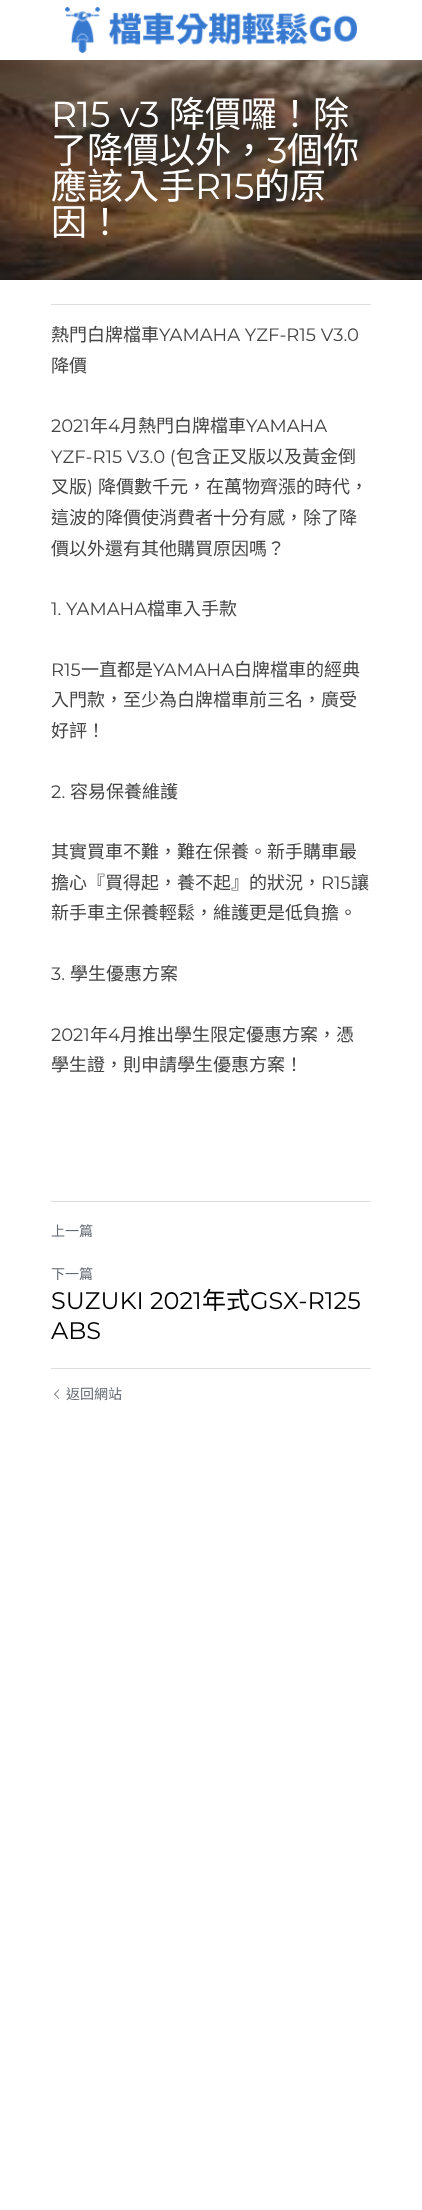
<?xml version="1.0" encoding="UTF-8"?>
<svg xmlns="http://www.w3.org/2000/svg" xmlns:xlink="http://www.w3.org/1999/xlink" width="422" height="2210">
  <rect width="100%" height="100%" fill="#ffffff" />
  <image x="65" y="7" width="292" height="46" xlink:href="image1.png" />
  <image x="0" y="60" width="422" height="220" xlink:href="image2.png" />
  <rect x="51" y="304" width="320" height="1" fill="#dddddd" />
  <rect x="51" y="1201" width="320" height="1" fill="#dddddd" />
  <rect x="51" y="1368" width="320" height="1" fill="#dddddd" />
  <image x="54" y="1389" width="6" height="10" xlink:href="image3.png" />
  <text x="51" y="127" style="font-family: Montserrat; font-size: 36px; fill: #ffffff">R15 v3</text>
  <text x="169" y="127" style="font-family: Noto Sans CJK TC; font-size: 36px; fill: #ffffff">降價囉！除</text>
  <text x="51" y="163" style="font-family: Noto Sans CJK TC; font-size: 36px; fill: #ffffff">了降價以外，</text>
  <text x="267" y="163" style="font-family: Montserrat; font-size: 36px; fill: #ffffff">3</text>
  <text x="287" y="163" style="font-family: Noto Sans CJK TC; font-size: 36px; fill: #ffffff">個你</text>
  <text x="51" y="199" style="font-family: Noto Sans CJK TC; font-size: 36px; fill: #ffffff">應該入手</text>
  <text x="195" y="199" style="font-family: Montserrat; font-size: 36px; fill: #ffffff">R15</text>
  <text x="254" y="199" style="font-family: Noto Sans CJK TC; font-size: 36px; fill: #ffffff">的原</text>
  <text x="51" y="235" style="font-family: Noto Sans CJK TC; font-size: 36px; fill: #ffffff">因！</text>
  <text x="51" y="341" style="font-family: Noto Sans CJK TC; font-size: 18px; fill: #444444">熱門白牌檔車</text>
  <text x="159" y="341" style="font-family: Montserrat; font-size: 18px; fill: #444444">YAMAHA YZF-R15 V3.0</text>
  <text x="51" y="372" style="font-family: Noto Sans CJK TC; font-size: 18px; fill: #444444">降價</text>
  <text x="51" y="432" style="font-family: Montserrat; font-size: 18px; fill: #444444">2021</text>
  <text x="90" y="432" style="font-family: Noto Sans CJK TC; font-size: 18px; fill: #444444">年</text>
  <text x="108" y="432" style="font-family: Montserrat; font-size: 18px; fill: #444444">4</text>
  <text x="120" y="432" style="font-family: Noto Sans CJK TC; font-size: 18px; fill: #444444">月熱門白牌檔車</text>
  <text x="246" y="432" style="font-family: Montserrat; font-size: 18px; fill: #444444">YAMAHA</text>
  <text x="51" y="463" style="font-family: Montserrat; font-size: 18px; fill: #444444">YZF-R15 V3.0 (</text>
  <text x="176" y="463" style="font-family: Noto Sans CJK TC; font-size: 18px; fill: #444444">包含正叉版以及黃金倒</text>
  <text x="51" y="493" style="font-family: Noto Sans CJK TC; font-size: 18px; fill: #444444">叉版</text>
  <text x="87" y="493" style="font-family: Montserrat; font-size: 18px; fill: #444444">)</text>
  <text x="98" y="493" style="font-family: Noto Sans CJK TC; font-size: 18px; fill: #444444">降價數千元，在萬物齊漲的時代，</text>
  <text x="51" y="524" style="font-family: Noto Sans CJK TC; font-size: 18px; fill: #444444">這波的降價使消費者十分有感，除了降</text>
  <text x="51" y="555" style="font-family: Noto Sans CJK TC; font-size: 18px; fill: #444444">價以外還有其他購買原因嗎？</text>
  <text x="51" y="615" style="font-family: Montserrat; font-size: 18px; fill: #444444">1. YAMAHA</text>
  <text x="147" y="615" style="font-family: Noto Sans CJK TC; font-size: 18px; fill: #444444">檔車入手款</text>
  <text x="51" y="676" style="font-family: Montserrat; font-size: 18px; fill: #444444">R15</text>
  <text x="81" y="676" style="font-family: Noto Sans CJK TC; font-size: 18px; fill: #444444">一直都是</text>
  <text x="153" y="676" style="font-family: Montserrat; font-size: 18px; fill: #444444">YAMAHA</text>
  <text x="234" y="676" style="font-family: Noto Sans CJK TC; font-size: 18px; fill: #444444">白牌檔車的經典</text>
  <text x="51" y="706" style="font-family: Noto Sans CJK TC; font-size: 18px; fill: #444444">入門款，至少為白牌檔車前三名，廣受</text>
  <text x="51" y="737" style="font-family: Noto Sans CJK TC; font-size: 18px; fill: #444444">好評！</text>
  <text x="51" y="798" style="font-family: Montserrat; font-size: 18px; fill: #444444">2.</text>
  <text x="70" y="798" style="font-family: Noto Sans CJK TC; font-size: 18px; fill: #444444">容易保養維護</text>
  <text x="51" y="858" style="font-family: Noto Sans CJK TC; font-size: 18px; fill: #444444">其實買車不難，難在保養。新手購車最</text>
  <text x="51" y="889" style="font-family: Noto Sans CJK TC; font-size: 18px; fill: #444444">擔心『買得起，養不起』的狀況，</text>
  <text x="321" y="889" style="font-family: Montserrat; font-size: 18px; fill: #444444">R15</text>
  <text x="351" y="889" style="font-family: Noto Sans CJK TC; font-size: 18px; fill: #444444">讓</text>
  <text x="51" y="919" style="font-family: Noto Sans CJK TC; font-size: 18px; fill: #444444">新手車主保養輕鬆，維護更是低負擔。</text>
  <text x="51" y="980" style="font-family: Montserrat; font-size: 18px; fill: #444444">3.</text>
  <text x="70" y="980" style="font-family: Noto Sans CJK TC; font-size: 18px; fill: #444444">學生優惠方案</text>
  <text x="51" y="1041" style="font-family: Montserrat; font-size: 18px; fill: #444444">2021</text>
  <text x="90" y="1041" style="font-family: Noto Sans CJK TC; font-size: 18px; fill: #444444">年</text>
  <text x="108" y="1041" style="font-family: Montserrat; font-size: 18px; fill: #444444">4</text>
  <text x="120" y="1041" style="font-family: Noto Sans CJK TC; font-size: 18px; fill: #444444">月推出學生限定優惠方案，憑</text>
  <text x="51" y="1071" style="font-family: Noto Sans CJK TC; font-size: 18px; fill: #444444">學生證，則申請學生優惠方案！</text>
  <text x="51" y="1236" style="font-family: Noto Sans CJK TC; font-size: 14px; fill: #636972">上一篇</text>
  <text x="51" y="1279" style="font-family: Noto Sans CJK TC; font-size: 14px; fill: #636972">下一篇</text>
  <text x="51" y="1309" style="font-family: Montserrat; font-size: 24px; fill: #000000">SUZUKI 2021</text>
  <text x="202" y="1309" style="font-family: Noto Sans CJK TC; font-size: 24px; fill: #000000">年式</text>
  <text x="250" y="1309" style="font-family: Montserrat; font-size: 24px; fill: #000000">GSX-R125</text>
  <text x="51" y="1339" style="font-family: Montserrat; font-size: 24px; fill: #000000">ABS</text>
  <text x="66" y="1399" style="font-family: Noto Sans CJK TC; font-size: 14px; fill: #636972">返回網站</text>
</svg>
